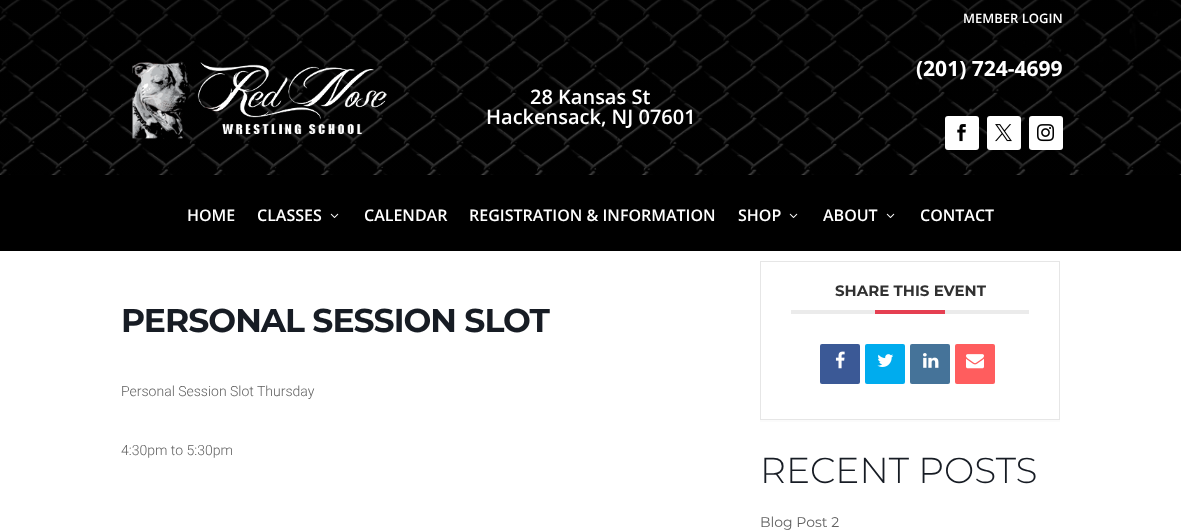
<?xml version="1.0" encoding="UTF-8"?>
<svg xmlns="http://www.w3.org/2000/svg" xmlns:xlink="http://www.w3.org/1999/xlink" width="1181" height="530">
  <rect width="100%" height="100%" fill="#ffffff" />
  <image x="0" y="0" width="1181" height="175" xlink:href="image1.png" />
  <image x="132" y="61" width="255" height="78" xlink:href="image2.png" />
  <rect x="945" y="116" width="34" height="34" rx="3" fill="#ffffff" />
  <image x="957" y="124" width="9" height="18" xlink:href="image3.png" />
  <rect x="987" y="116" width="34" height="34" rx="3" fill="#ffffff" />
  <image x="995" y="124" width="17" height="18" xlink:href="image4.png" />
  <rect x="1029" y="116" width="34" height="34" rx="3" fill="#ffffff" />
  <image x="1037" y="124" width="17" height="18" xlink:href="image5.png" />
  <rect y="175" width="1181" height="76" fill="#000000" />
  <image x="330" y="213" width="9" height="5" xlink:href="image6.png" />
  <image x="789" y="213" width="9" height="5" xlink:href="image6.png" />
  <image x="886" y="213" width="9" height="5" xlink:href="image6.png" />
  <rect x="760" y="420" width="300" height="2" fill="#fbfbfb" />
  <rect x="760.5" y="261.5" width="299" height="158" fill="none" stroke="#e6e6e6" />
  <rect x="791" y="310" width="238" height="4" fill="#ebebeb" />
  <rect x="875" y="310" width="70" height="4" fill="#e53f51" />
  <rect x="820" y="344" width="40" height="40" rx="2" fill="#3b5996" />
  <image x="835" y="351" width="10" height="18" xlink:href="image7.png" />
  <rect x="865" y="344" width="40" height="40" rx="2" fill="#00acee" />
  <image x="877" y="354" width="17" height="13" xlink:href="image8.png" />
  <rect x="910" y="344" width="40" height="40" rx="2" fill="#457399" />
  <image x="923" y="353" width="16" height="15" xlink:href="image9.png" />
  <rect x="955" y="344" width="40" height="40" rx="2" fill="#ff5d5e" />
  <image x="966" y="354" width="18" height="15" xlink:href="image10.png" />
  <text x="963" y="23" style="font-family: Open Sans; font-size: 13px; font-weight: 600; fill: #ffffff">MEMBER LOGIN</text>
  <text x="530" y="104" style="font-family: Open Sans; font-size: 20px; font-weight: 600; fill: #ffffff">28 Kansas St</text>
  <text x="486" y="124" style="font-family: Open Sans; font-size: 20px; font-weight: 600; fill: #ffffff">Hackensack, NJ 07601</text>
  <text x="916" y="76" style="font-family: Open Sans; font-size: 21px; font-weight: bold; fill: #ffffff">(201) 724-4699</text>
  <text x="187" y="221" style="font-family: Open Sans; font-size: 16px; font-weight: 600; fill: #ffffff">HOME</text>
  <text x="257" y="221" style="font-family: Open Sans; font-size: 16px; font-weight: 600; fill: #ffffff">CLASSES</text>
  <text x="364" y="221" style="font-family: Open Sans; font-size: 16px; font-weight: 600; fill: #ffffff">CALENDAR</text>
  <text x="469" y="221" style="font-family: Open Sans; font-size: 16px; font-weight: 600; fill: #ffffff">REGISTRATION &amp; INFORMATION</text>
  <text x="738" y="221" style="font-family: Open Sans; font-size: 16px; font-weight: 600; fill: #ffffff">SHOP</text>
  <text x="823" y="221" style="font-family: Open Sans; font-size: 16px; font-weight: 600; fill: #ffffff">ABOUT</text>
  <text x="920" y="221" style="font-family: Open Sans; font-size: 16px; font-weight: 600; fill: #ffffff">CONTACT</text>
  <text x="121" y="332" style="font-family: Montserrat; font-size: 33px; font-weight: bold; letter-spacing: -1px; fill: #171c24">PERSONAL SESSION SLOT</text>
  <text x="121" y="396" style="font-family: Roboto; font-size: 14px; font-weight: 300; fill: #616161">Personal Session Slot Thursday</text>
  <text x="121" y="455" style="font-family: Roboto; font-size: 14px; font-weight: 300; fill: #616161">4:30pm to 5:30pm</text>
  <text x="835" y="296" style="font-family: Montserrat; font-size: 15px; font-weight: bold; fill: #313131">SHARE THIS EVENT</text>
  <text x="760" y="483" style="font-family: Montserrat; font-size: 36px; font-weight: 300; fill: #171c24">RECENT POSTS</text>
  <text x="760" y="527" style="font-family: Montserrat; font-size: 14px; fill: #616161">Blog Post 2</text>
</svg>
